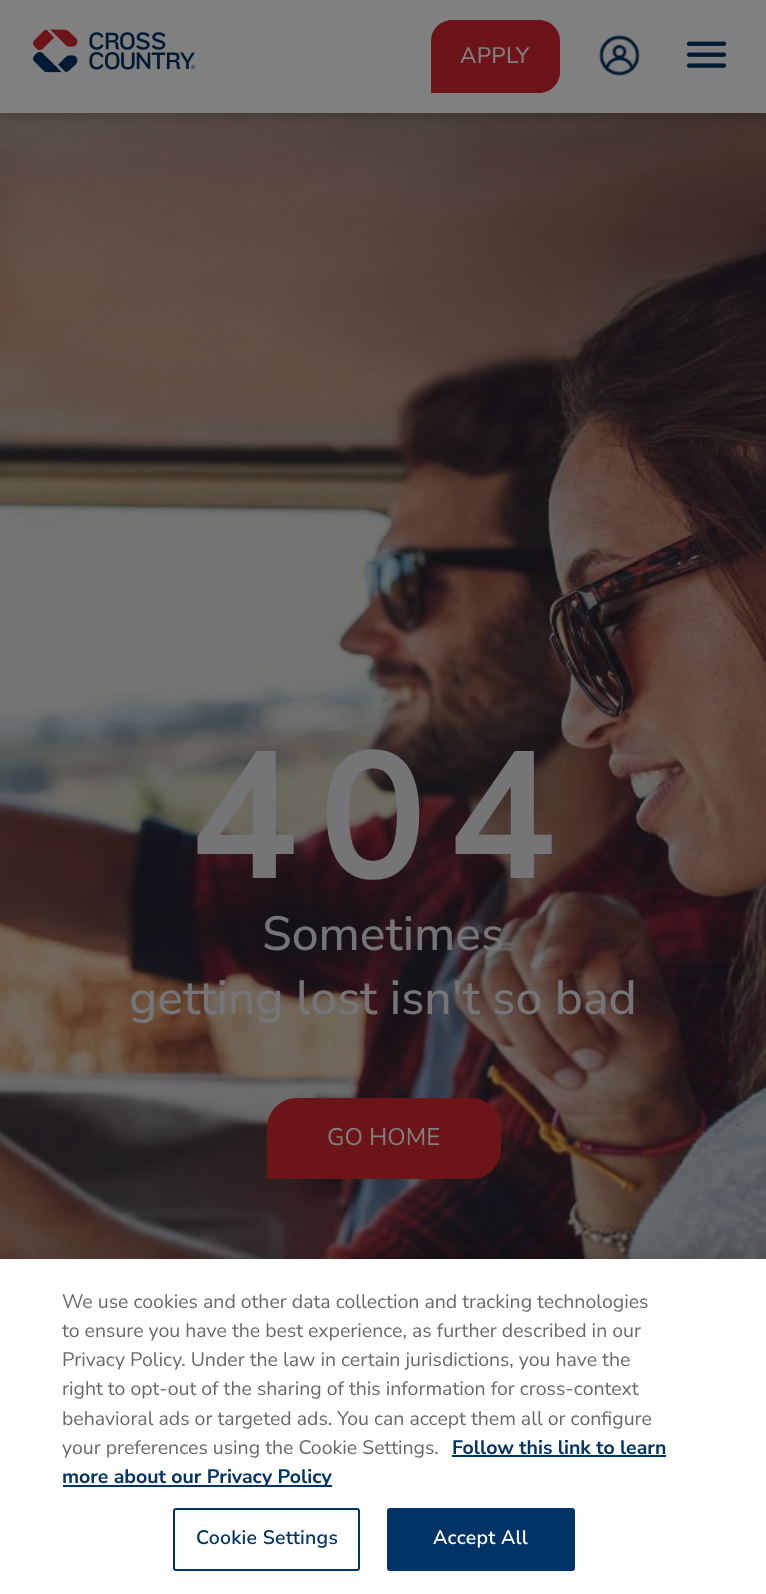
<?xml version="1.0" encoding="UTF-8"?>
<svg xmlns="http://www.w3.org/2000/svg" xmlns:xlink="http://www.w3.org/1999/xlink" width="766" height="1594">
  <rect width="100%" height="100%" fill="#ffffff" />
  <image x="0" y="113" width="766" height="1146" xlink:href="image4.png" />
  <rect y="5" width="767" height="112" fill="#000000" fill-opacity="0.16" filter="blur(4.5px)" />
  <rect width="766" height="113" fill="#808080" />
  <image x="33" y="29" width="162" height="44" xlink:href="image1.png" />
  <path d="M 452 20 h 87 c 11.5 0 21 9.5 21 21 v 31 c 0 11.5 -9.5 21 -21 21 h -108 v -52 c 0 -11.5 9.5 -21 21 -21 z" fill="#6c1418" />
  <image x="599" y="35" width="41" height="41" xlink:href="image2.png" />
  <image x="686" y="41" width="41" height="27" xlink:href="image3.png" />
  <path d="M 297 1098 h 174 c 16.5 0 30 13.5 30 30 v 21 c 0 16.5 -13.5 30 -30 30 h -204 v -51 c 0 -16.5 13.5 -30 30 -30 z" fill="#6c1418" />
  <rect y="1259" width="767" height="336" fill="#000000" fill-opacity="0.2" filter="blur(13.5px)" />
  <rect y="1259" width="766" height="335" fill="#ffffff" />
  <rect x="452" y="1455" width="214" height="2" fill="#003366" />
  <rect x="63" y="1485" width="269" height="2" fill="#003366" />
  <rect x="174" y="1509" width="185" height="61" rx="2" fill="none" stroke="#003366" stroke-width="2" />
  <rect x="388" y="1509" width="186" height="61" rx="2" fill="#003366" stroke="#003366" stroke-width="2" />
  <text x="460" y="63" style="font-family: Nunito Sans; font-size: 22.5px; font-weight: 500; letter-spacing: 0.25px; fill: #808080">APPLY</text>
  <text x="190" y="878" style="font-family: Nunito Sans; font-size: 180px; font-weight: bold; letter-spacing: 21px; fill: #757476">404</text>
  <text x="262" y="950" style="font-family: Nunito Sans; font-size: 48px; font-weight: 500; fill: #757476">Sometimes</text>
  <text x="129" y="1014" style="font-family: Nunito Sans; font-size: 48px; font-weight: 500; fill: #757476">getting lost isn't so bad</text>
  <text x="327" y="1145" style="font-family: Nunito Sans; font-size: 24px; fill: #808080">GO HOME</text>
  <text x="62" y="1308" style="font-family: Nunito Sans; font-size: 19.5px; fill: #696969">We use cookies and other data collection and tracking technologies</text>
  <text x="62" y="1337" style="font-family: Nunito Sans; font-size: 19.5px; fill: #696969">to ensure you have the best experience, as further described in our</text>
  <text x="62" y="1366" style="font-family: Nunito Sans; font-size: 19.5px; fill: #696969">Privacy Policy. Under the law in certain jurisdictions, you have the</text>
  <text x="62" y="1395" style="font-family: Nunito Sans; font-size: 19.5px; fill: #696969">right to opt-out of the sharing of this information for cross-context</text>
  <text x="62" y="1425" style="font-family: Nunito Sans; font-size: 19.5px; fill: #696969">behavioral ads or targeted ads. You can accept them all or configure</text>
  <text x="62" y="1454" style="font-family: Nunito Sans; font-size: 19.5px; fill: #696969">your preferences using the Cookie Settings.</text>
  <text x="452" y="1454" style="font-family: Nunito Sans; font-size: 19.5px; font-weight: bold; fill: #003366">Follow this link to learn</text>
  <text x="62" y="1483" style="font-family: Nunito Sans; font-size: 19.5px; font-weight: bold; fill: #003366">more about our Privacy Policy</text>
  <text x="196" y="1544" style="font-family: Nunito Sans; font-size: 19.5px; font-weight: 600; letter-spacing: 0.25px; fill: #003366">Cookie Settings</text>
  <text x="433" y="1544" style="font-family: Nunito Sans; font-size: 19.5px; font-weight: 600; letter-spacing: 0.25px; fill: #ffffff">Accept All</text>
</svg>
